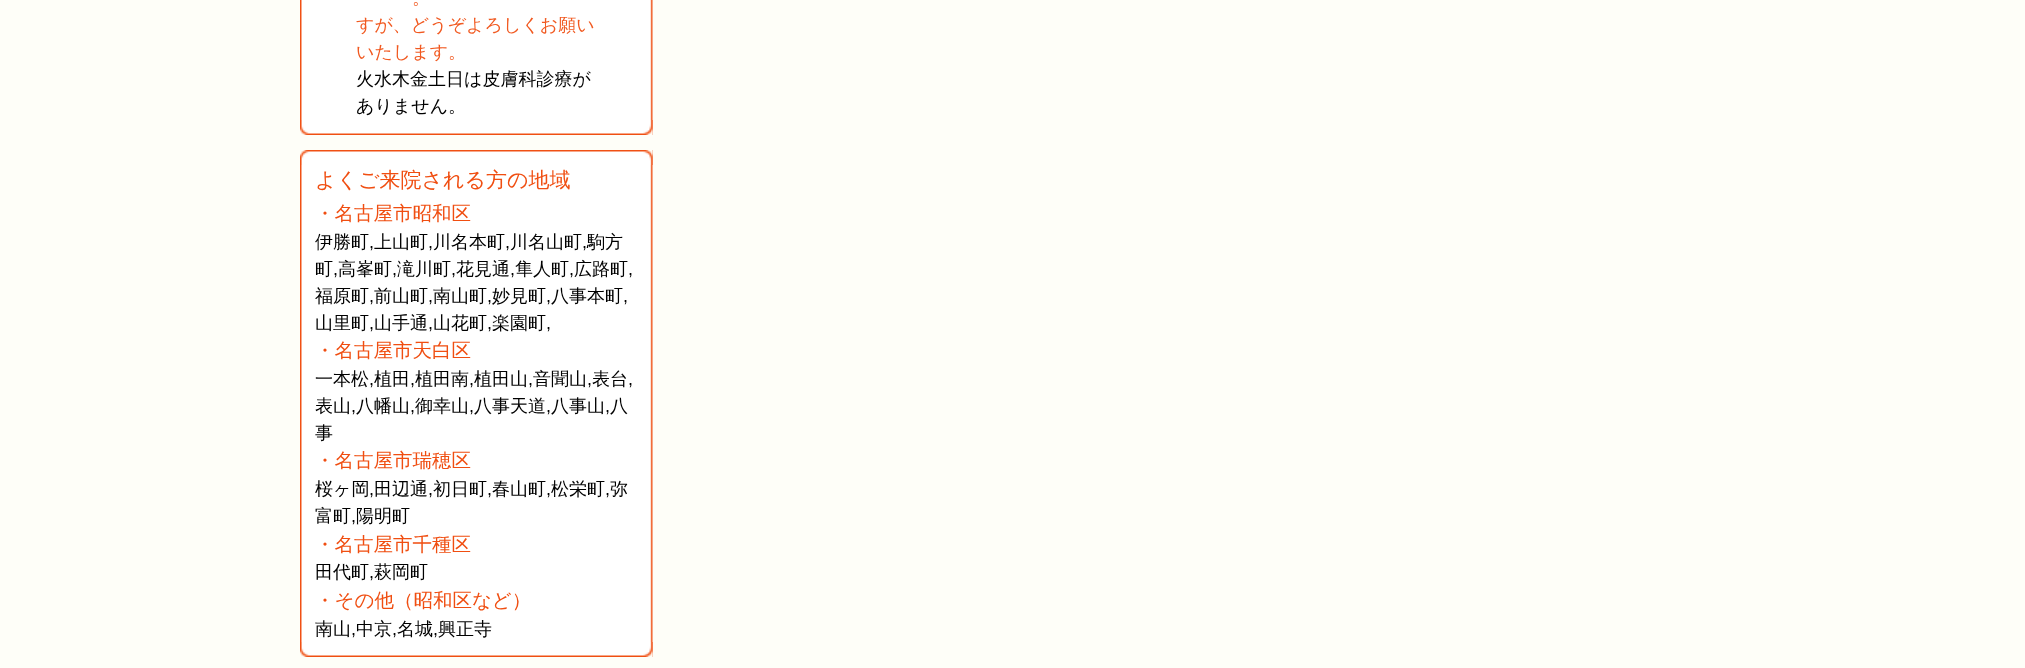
<?xml version="1.0" encoding="UTF-8"?>
<svg xmlns="http://www.w3.org/2000/svg" xmlns:xlink="http://www.w3.org/1999/xlink" width="2025" height="668">
  <rect width="100%" height="100%" fill="#fefef8" />
  <image x="300" y="0" width="353" height="135" xlink:href="image1.png" />
  <image x="300" y="120" width="353" height="15" xlink:href="image2.png" />
  <image x="300" y="150" width="353" height="507" xlink:href="image3.png" />
  <image x="300" y="150" width="353" height="15" xlink:href="image4.png" />
  <image x="300" y="642" width="353" height="15" xlink:href="image2.png" />
  <text x="412" y="4" style="font-family: WenQuanYi Zen Hei; font-size: 18px; font-weight: 500; fill: #f15920">。</text>
  <text x="356" y="31" style="font-family: WenQuanYi Zen Hei; font-size: 18px; font-weight: 500; fill: #f15920">すが、どうぞよろしくお願い</text>
  <text x="356" y="58" style="font-family: WenQuanYi Zen Hei; font-size: 18px; font-weight: 500; fill: #f15920">いたします。</text>
  <text x="356" y="85" style="font-family: WenQuanYi Zen Hei; font-size: 18px; font-weight: 500; fill: #000000">火水木金土日は皮膚科診療が</text>
  <text x="356" y="112" style="font-family: WenQuanYi Zen Hei; font-size: 18px; font-weight: 500; fill: #000000">ありません。</text>
  <text x="315" y="187" style="font-family: WenQuanYi Zen Hei; font-size: 21px; font-weight: 500; fill: #f04e11">よくご来院される方の地域</text>
  <text x="315" y="220" style="font-family: WenQuanYi Zen Hei; font-size: 19.5px; font-weight: 500; fill: #f04e11">・名古屋市昭和区</text>
  <text x="315" y="248" style="font-family: WenQuanYi Zen Hei; font-size: 18px; font-weight: 500; fill: #000000">伊勝町</text>
  <text x="369" y="248" style="font-family: Liberation Sans; font-size: 18px; fill: #000000">,</text>
  <text x="374" y="248" style="font-family: WenQuanYi Zen Hei; font-size: 18px; font-weight: 500; fill: #000000">上山町</text>
  <text x="428" y="248" style="font-family: Liberation Sans; font-size: 18px; fill: #000000">,</text>
  <text x="433" y="248" style="font-family: WenQuanYi Zen Hei; font-size: 18px; font-weight: 500; fill: #000000">川名本町</text>
  <text x="505" y="248" style="font-family: Liberation Sans; font-size: 18px; fill: #000000">,</text>
  <text x="510" y="248" style="font-family: WenQuanYi Zen Hei; font-size: 18px; font-weight: 500; fill: #000000">川名山町</text>
  <text x="582" y="248" style="font-family: Liberation Sans; font-size: 18px; fill: #000000">,</text>
  <text x="587" y="248" style="font-family: WenQuanYi Zen Hei; font-size: 18px; font-weight: 500; fill: #000000">駒方</text>
  <text x="315" y="275" style="font-family: WenQuanYi Zen Hei; font-size: 18px; font-weight: 500; fill: #000000">町</text>
  <text x="333" y="275" style="font-family: Liberation Sans; font-size: 18px; fill: #000000">,</text>
  <text x="338" y="275" style="font-family: WenQuanYi Zen Hei; font-size: 18px; font-weight: 500; fill: #000000">高峯町</text>
  <text x="392" y="275" style="font-family: Liberation Sans; font-size: 18px; fill: #000000">,</text>
  <text x="397" y="275" style="font-family: WenQuanYi Zen Hei; font-size: 18px; font-weight: 500; fill: #000000">滝川町</text>
  <text x="451" y="275" style="font-family: Liberation Sans; font-size: 18px; fill: #000000">,</text>
  <text x="456" y="275" style="font-family: WenQuanYi Zen Hei; font-size: 18px; font-weight: 500; fill: #000000">花見通</text>
  <text x="510" y="275" style="font-family: Liberation Sans; font-size: 18px; fill: #000000">,</text>
  <text x="515" y="275" style="font-family: WenQuanYi Zen Hei; font-size: 18px; font-weight: 500; fill: #000000">隼人町</text>
  <text x="569" y="275" style="font-family: Liberation Sans; font-size: 18px; fill: #000000">,</text>
  <text x="574" y="275" style="font-family: WenQuanYi Zen Hei; font-size: 18px; font-weight: 500; fill: #000000">広路町</text>
  <text x="628" y="275" style="font-family: Liberation Sans; font-size: 18px; fill: #000000">,</text>
  <text x="315" y="302" style="font-family: WenQuanYi Zen Hei; font-size: 18px; font-weight: 500; fill: #000000">福原町</text>
  <text x="369" y="302" style="font-family: Liberation Sans; font-size: 18px; fill: #000000">,</text>
  <text x="374" y="302" style="font-family: WenQuanYi Zen Hei; font-size: 18px; font-weight: 500; fill: #000000">前山町</text>
  <text x="428" y="302" style="font-family: Liberation Sans; font-size: 18px; fill: #000000">,</text>
  <text x="433" y="302" style="font-family: WenQuanYi Zen Hei; font-size: 18px; font-weight: 500; fill: #000000">南山町</text>
  <text x="487" y="302" style="font-family: Liberation Sans; font-size: 18px; fill: #000000">,</text>
  <text x="492" y="302" style="font-family: WenQuanYi Zen Hei; font-size: 18px; font-weight: 500; fill: #000000">妙見町</text>
  <text x="546" y="302" style="font-family: Liberation Sans; font-size: 18px; fill: #000000">,</text>
  <text x="551" y="302" style="font-family: WenQuanYi Zen Hei; font-size: 18px; font-weight: 500; fill: #000000">八事本町</text>
  <text x="623" y="302" style="font-family: Liberation Sans; font-size: 18px; fill: #000000">,</text>
  <text x="315" y="329" style="font-family: WenQuanYi Zen Hei; font-size: 18px; font-weight: 500; fill: #000000">山里町</text>
  <text x="369" y="329" style="font-family: Liberation Sans; font-size: 18px; fill: #000000">,</text>
  <text x="374" y="329" style="font-family: WenQuanYi Zen Hei; font-size: 18px; font-weight: 500; fill: #000000">山手通</text>
  <text x="428" y="329" style="font-family: Liberation Sans; font-size: 18px; fill: #000000">,</text>
  <text x="433" y="329" style="font-family: WenQuanYi Zen Hei; font-size: 18px; font-weight: 500; fill: #000000">山花町</text>
  <text x="487" y="329" style="font-family: Liberation Sans; font-size: 18px; fill: #000000">,</text>
  <text x="492" y="329" style="font-family: WenQuanYi Zen Hei; font-size: 18px; font-weight: 500; fill: #000000">楽園町</text>
  <text x="546" y="329" style="font-family: Liberation Sans; font-size: 18px; fill: #000000">,</text>
  <text x="315" y="357" style="font-family: WenQuanYi Zen Hei; font-size: 19.5px; font-weight: 500; fill: #f04e11">・名古屋市天白区</text>
  <text x="315" y="385" style="font-family: WenQuanYi Zen Hei; font-size: 18px; font-weight: 500; fill: #000000">一本松</text>
  <text x="369" y="385" style="font-family: Liberation Sans; font-size: 18px; fill: #000000">,</text>
  <text x="374" y="385" style="font-family: WenQuanYi Zen Hei; font-size: 18px; font-weight: 500; fill: #000000">植田</text>
  <text x="410" y="385" style="font-family: Liberation Sans; font-size: 18px; fill: #000000">,</text>
  <text x="415" y="385" style="font-family: WenQuanYi Zen Hei; font-size: 18px; font-weight: 500; fill: #000000">植田南</text>
  <text x="469" y="385" style="font-family: Liberation Sans; font-size: 18px; fill: #000000">,</text>
  <text x="474" y="385" style="font-family: WenQuanYi Zen Hei; font-size: 18px; font-weight: 500; fill: #000000">植田山</text>
  <text x="528" y="385" style="font-family: Liberation Sans; font-size: 18px; fill: #000000">,</text>
  <text x="533" y="385" style="font-family: WenQuanYi Zen Hei; font-size: 18px; font-weight: 500; fill: #000000">音聞山</text>
  <text x="587" y="385" style="font-family: Liberation Sans; font-size: 18px; fill: #000000">,</text>
  <text x="592" y="385" style="font-family: WenQuanYi Zen Hei; font-size: 18px; font-weight: 500; fill: #000000">表台</text>
  <text x="628" y="385" style="font-family: Liberation Sans; font-size: 18px; fill: #000000">,</text>
  <text x="315" y="412" style="font-family: WenQuanYi Zen Hei; font-size: 18px; font-weight: 500; fill: #000000">表山</text>
  <text x="351" y="412" style="font-family: Liberation Sans; font-size: 18px; fill: #000000">,</text>
  <text x="356" y="412" style="font-family: WenQuanYi Zen Hei; font-size: 18px; font-weight: 500; fill: #000000">八幡山</text>
  <text x="410" y="412" style="font-family: Liberation Sans; font-size: 18px; fill: #000000">,</text>
  <text x="415" y="412" style="font-family: WenQuanYi Zen Hei; font-size: 18px; font-weight: 500; fill: #000000">御幸山</text>
  <text x="469" y="412" style="font-family: Liberation Sans; font-size: 18px; fill: #000000">,</text>
  <text x="474" y="412" style="font-family: WenQuanYi Zen Hei; font-size: 18px; font-weight: 500; fill: #000000">八事天道</text>
  <text x="546" y="412" style="font-family: Liberation Sans; font-size: 18px; fill: #000000">,</text>
  <text x="551" y="412" style="font-family: WenQuanYi Zen Hei; font-size: 18px; font-weight: 500; fill: #000000">八事山</text>
  <text x="605" y="412" style="font-family: Liberation Sans; font-size: 18px; fill: #000000">,</text>
  <text x="610" y="412" style="font-family: WenQuanYi Zen Hei; font-size: 18px; font-weight: 500; fill: #000000">八</text>
  <text x="315" y="439" style="font-family: WenQuanYi Zen Hei; font-size: 18px; font-weight: 500; fill: #000000">事</text>
  <text x="315" y="467" style="font-family: WenQuanYi Zen Hei; font-size: 19.5px; font-weight: 500; fill: #f04e11">・名古屋市瑞穂区</text>
  <text x="315" y="495" style="font-family: WenQuanYi Zen Hei; font-size: 18px; font-weight: 500; fill: #000000">桜ヶ岡</text>
  <text x="369" y="495" style="font-family: Liberation Sans; font-size: 18px; fill: #000000">,</text>
  <text x="374" y="495" style="font-family: WenQuanYi Zen Hei; font-size: 18px; font-weight: 500; fill: #000000">田辺通</text>
  <text x="428" y="495" style="font-family: Liberation Sans; font-size: 18px; fill: #000000">,</text>
  <text x="433" y="495" style="font-family: WenQuanYi Zen Hei; font-size: 18px; font-weight: 500; fill: #000000">初日町</text>
  <text x="487" y="495" style="font-family: Liberation Sans; font-size: 18px; fill: #000000">,</text>
  <text x="492" y="495" style="font-family: WenQuanYi Zen Hei; font-size: 18px; font-weight: 500; fill: #000000">春山町</text>
  <text x="546" y="495" style="font-family: Liberation Sans; font-size: 18px; fill: #000000">,</text>
  <text x="551" y="495" style="font-family: WenQuanYi Zen Hei; font-size: 18px; font-weight: 500; fill: #000000">松栄町</text>
  <text x="605" y="495" style="font-family: Liberation Sans; font-size: 18px; fill: #000000">,</text>
  <text x="610" y="495" style="font-family: WenQuanYi Zen Hei; font-size: 18px; font-weight: 500; fill: #000000">弥</text>
  <text x="315" y="522" style="font-family: WenQuanYi Zen Hei; font-size: 18px; font-weight: 500; fill: #000000">富町</text>
  <text x="351" y="522" style="font-family: Liberation Sans; font-size: 18px; fill: #000000">,</text>
  <text x="356" y="522" style="font-family: WenQuanYi Zen Hei; font-size: 18px; font-weight: 500; fill: #000000">陽明町</text>
  <text x="315" y="551" style="font-family: WenQuanYi Zen Hei; font-size: 19.5px; font-weight: 500; fill: #f04e11">・名古屋市千種区</text>
  <text x="315" y="578" style="font-family: WenQuanYi Zen Hei; font-size: 18px; font-weight: 500; fill: #000000">田代町</text>
  <text x="369" y="578" style="font-family: Liberation Sans; font-size: 18px; fill: #000000">,</text>
  <text x="374" y="578" style="font-family: WenQuanYi Zen Hei; font-size: 18px; font-weight: 500; fill: #000000">萩岡町</text>
  <text x="315" y="607" style="font-family: WenQuanYi Zen Hei; font-size: 19.5px; font-weight: 500; fill: #f04e11">・その他（昭和区など）</text>
  <text x="315" y="635" style="font-family: WenQuanYi Zen Hei; font-size: 18px; font-weight: 500; fill: #000000">南山</text>
  <text x="351" y="635" style="font-family: Liberation Sans; font-size: 18px; fill: #000000">,</text>
  <text x="356" y="635" style="font-family: WenQuanYi Zen Hei; font-size: 18px; font-weight: 500; fill: #000000">中京</text>
  <text x="392" y="635" style="font-family: Liberation Sans; font-size: 18px; fill: #000000">,</text>
  <text x="397" y="635" style="font-family: WenQuanYi Zen Hei; font-size: 18px; font-weight: 500; fill: #000000">名城</text>
  <text x="433" y="635" style="font-family: Liberation Sans; font-size: 18px; fill: #000000">,</text>
  <text x="438" y="635" style="font-family: WenQuanYi Zen Hei; font-size: 18px; font-weight: 500; fill: #000000">興正寺</text>
</svg>
